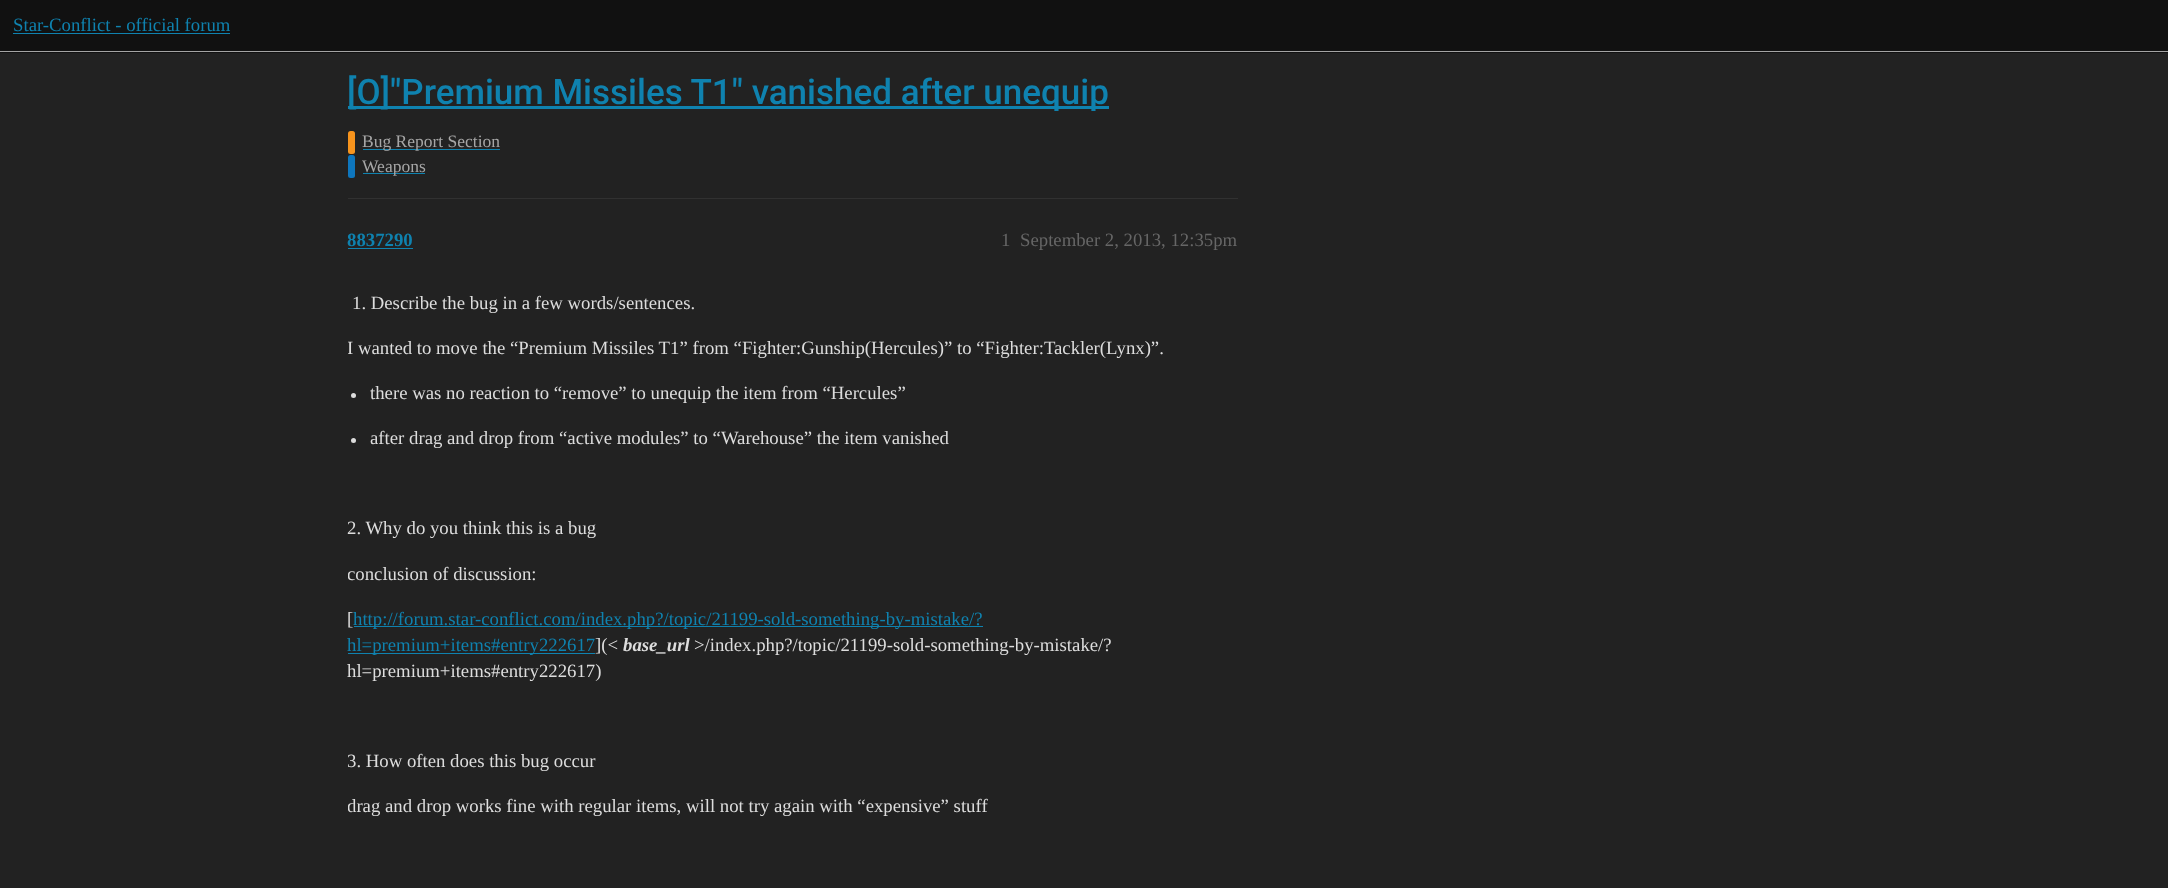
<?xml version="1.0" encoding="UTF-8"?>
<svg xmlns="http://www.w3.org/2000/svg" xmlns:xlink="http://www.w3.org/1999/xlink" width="2168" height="888">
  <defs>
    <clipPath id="clip1"><rect x="348" y="273" width="890" height="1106" /></clipPath>
  </defs>
  <rect width="100%" height="100%" fill="#222222" />
  <rect width="2168" height="53" fill="#111111" />
  <rect y="51" width="2168" height="1" fill="#a4a4a4" />
  <rect x="13" y="33" width="217" height="1" fill="#0f82af" />
  <rect x="348" y="106" width="761" height="3" fill="#0f82af" />
  <rect x="348" y="131" width="7" height="23" rx="2.5" fill="#f7941d" />
  <rect x="363" y="149" width="137" height="1" fill="#0f82af" />
  <rect x="348" y="155" width="7" height="23" rx="2.5" fill="#0e76bd" />
  <rect x="363" y="173" width="62" height="1" fill="#0f82af" />
  <rect x="348" y="198" width="890" height="1" fill="#313131" />
  <rect x="348" y="248" width="65" height="1" fill="#0f82af" />
  <circle cx="353.5" cy="395.5" r="2.5" fill="#dddddd" />
  <circle cx="353.5" cy="440.5" r="2.5" fill="#dddddd" />
  <rect x="354" y="626" width="629" height="1" fill="#0f82af" />
  <rect x="348" y="653" width="247" height="1" fill="#0f82af" />
  <text x="13" y="31" style="font-family: Liberation Serif; font-size: 18.75px; fill: #0f82af">Star-Conflict - official forum</text>
  <text x="347" y="104" style="font-family: Roboto; font-size: 35px; font-weight: 500; fill: #0f82af">[O]"Premium Missiles T1" vanished after unequip</text>
  <text x="362" y="147" style="font-family: Liberation Serif; font-size: 17.5px; fill: #a6a6a6">Bug Report Section</text>
  <text x="362" y="172" style="font-family: Liberation Serif; font-size: 17.5px; fill: #a6a6a6">Weapons</text>
  <text x="347" y="246" style="font-family: Liberation Serif; font-size: 18.75px; font-weight: bold; fill: #0f82af">8837290</text>
  <text x="1001" y="246" style="font-family: Liberation Serif; font-size: 18.75px; fill: #666666">1</text>
  <text x="1020" y="246" style="font-family: Liberation Serif; font-size: 18.75px; fill: #666666">September 2, 2013, 12:35pm</text>
  <text x="352" y="309" style="font-family: Liberation Serif; font-size: 18.75px; fill: #dddddd">1. Describe the bug in a few words/sentences.</text>
  <g clip-path="url(#clip1)">
    <text x="347" y="354" style="font-family: Liberation Serif; font-size: 18.75px; fill: #dddddd">I wanted to move the “Premium Missiles T1” from “Fighter:Gunship(Hercules)” to “Fighter:Tackler(Lynx)”.</text>
  </g>
  <text x="370" y="399" style="font-family: Liberation Serif; font-size: 18.75px; fill: #dddddd">there was no reaction to “remove” to unequip the item from “Hercules”</text>
  <text x="370" y="444" style="font-family: Liberation Serif; font-size: 18.75px; fill: #dddddd">after drag and drop from “active modules” to “Warehouse” the item vanished</text>
  <text x="347" y="534" style="font-family: Liberation Serif; font-size: 18.75px; fill: #dddddd">2. Why do you think this is a bug</text>
  <g clip-path="url(#clip1)">
    <text x="347" y="580" style="font-family: Liberation Serif; font-size: 18.75px; fill: #dddddd">conclusion of discussion:</text>
  </g>
  <text x="347" y="625" style="font-family: Liberation Serif; font-size: 18.75px; fill: #dddddd">[</text>
  <text x="353" y="625" style="font-family: Liberation Serif; font-size: 18.75px; fill: #0f82af">http://forum.star-conflict.com/index.php?/topic/21199-sold-something-by-mistake/?</text>
  <text x="347" y="651" style="font-family: Liberation Serif; font-size: 18.75px; fill: #0f82af">hl=premium+items#entry222617</text>
  <text x="595" y="651" style="font-family: Liberation Serif; font-size: 18.75px; fill: #dddddd">](&lt;</text>
  <text x="623" y="651" style="font-family: Liberation Serif; font-size: 18.75px; font-weight: bold; font-style: italic; fill: #dddddd">base_url</text>
  <text x="694" y="651" style="font-family: Liberation Serif; font-size: 18.75px; fill: #dddddd">&gt;/index.php?/topic/21199-sold-something-by-mistake/?</text>
  <text x="347" y="677" style="font-family: Liberation Serif; font-size: 18.75px; fill: #dddddd">hl=premium+items#entry222617)</text>
  <g clip-path="url(#clip1)">
    <text x="347" y="767" style="font-family: Liberation Serif; font-size: 18.75px; fill: #dddddd">3. How often does this bug occur</text>
    <text x="347" y="812" style="font-family: Liberation Serif; font-size: 18.75px; fill: #dddddd">drag and drop works fine with regular items, will not try again with “expensive” stuff</text>
  </g>
</svg>
